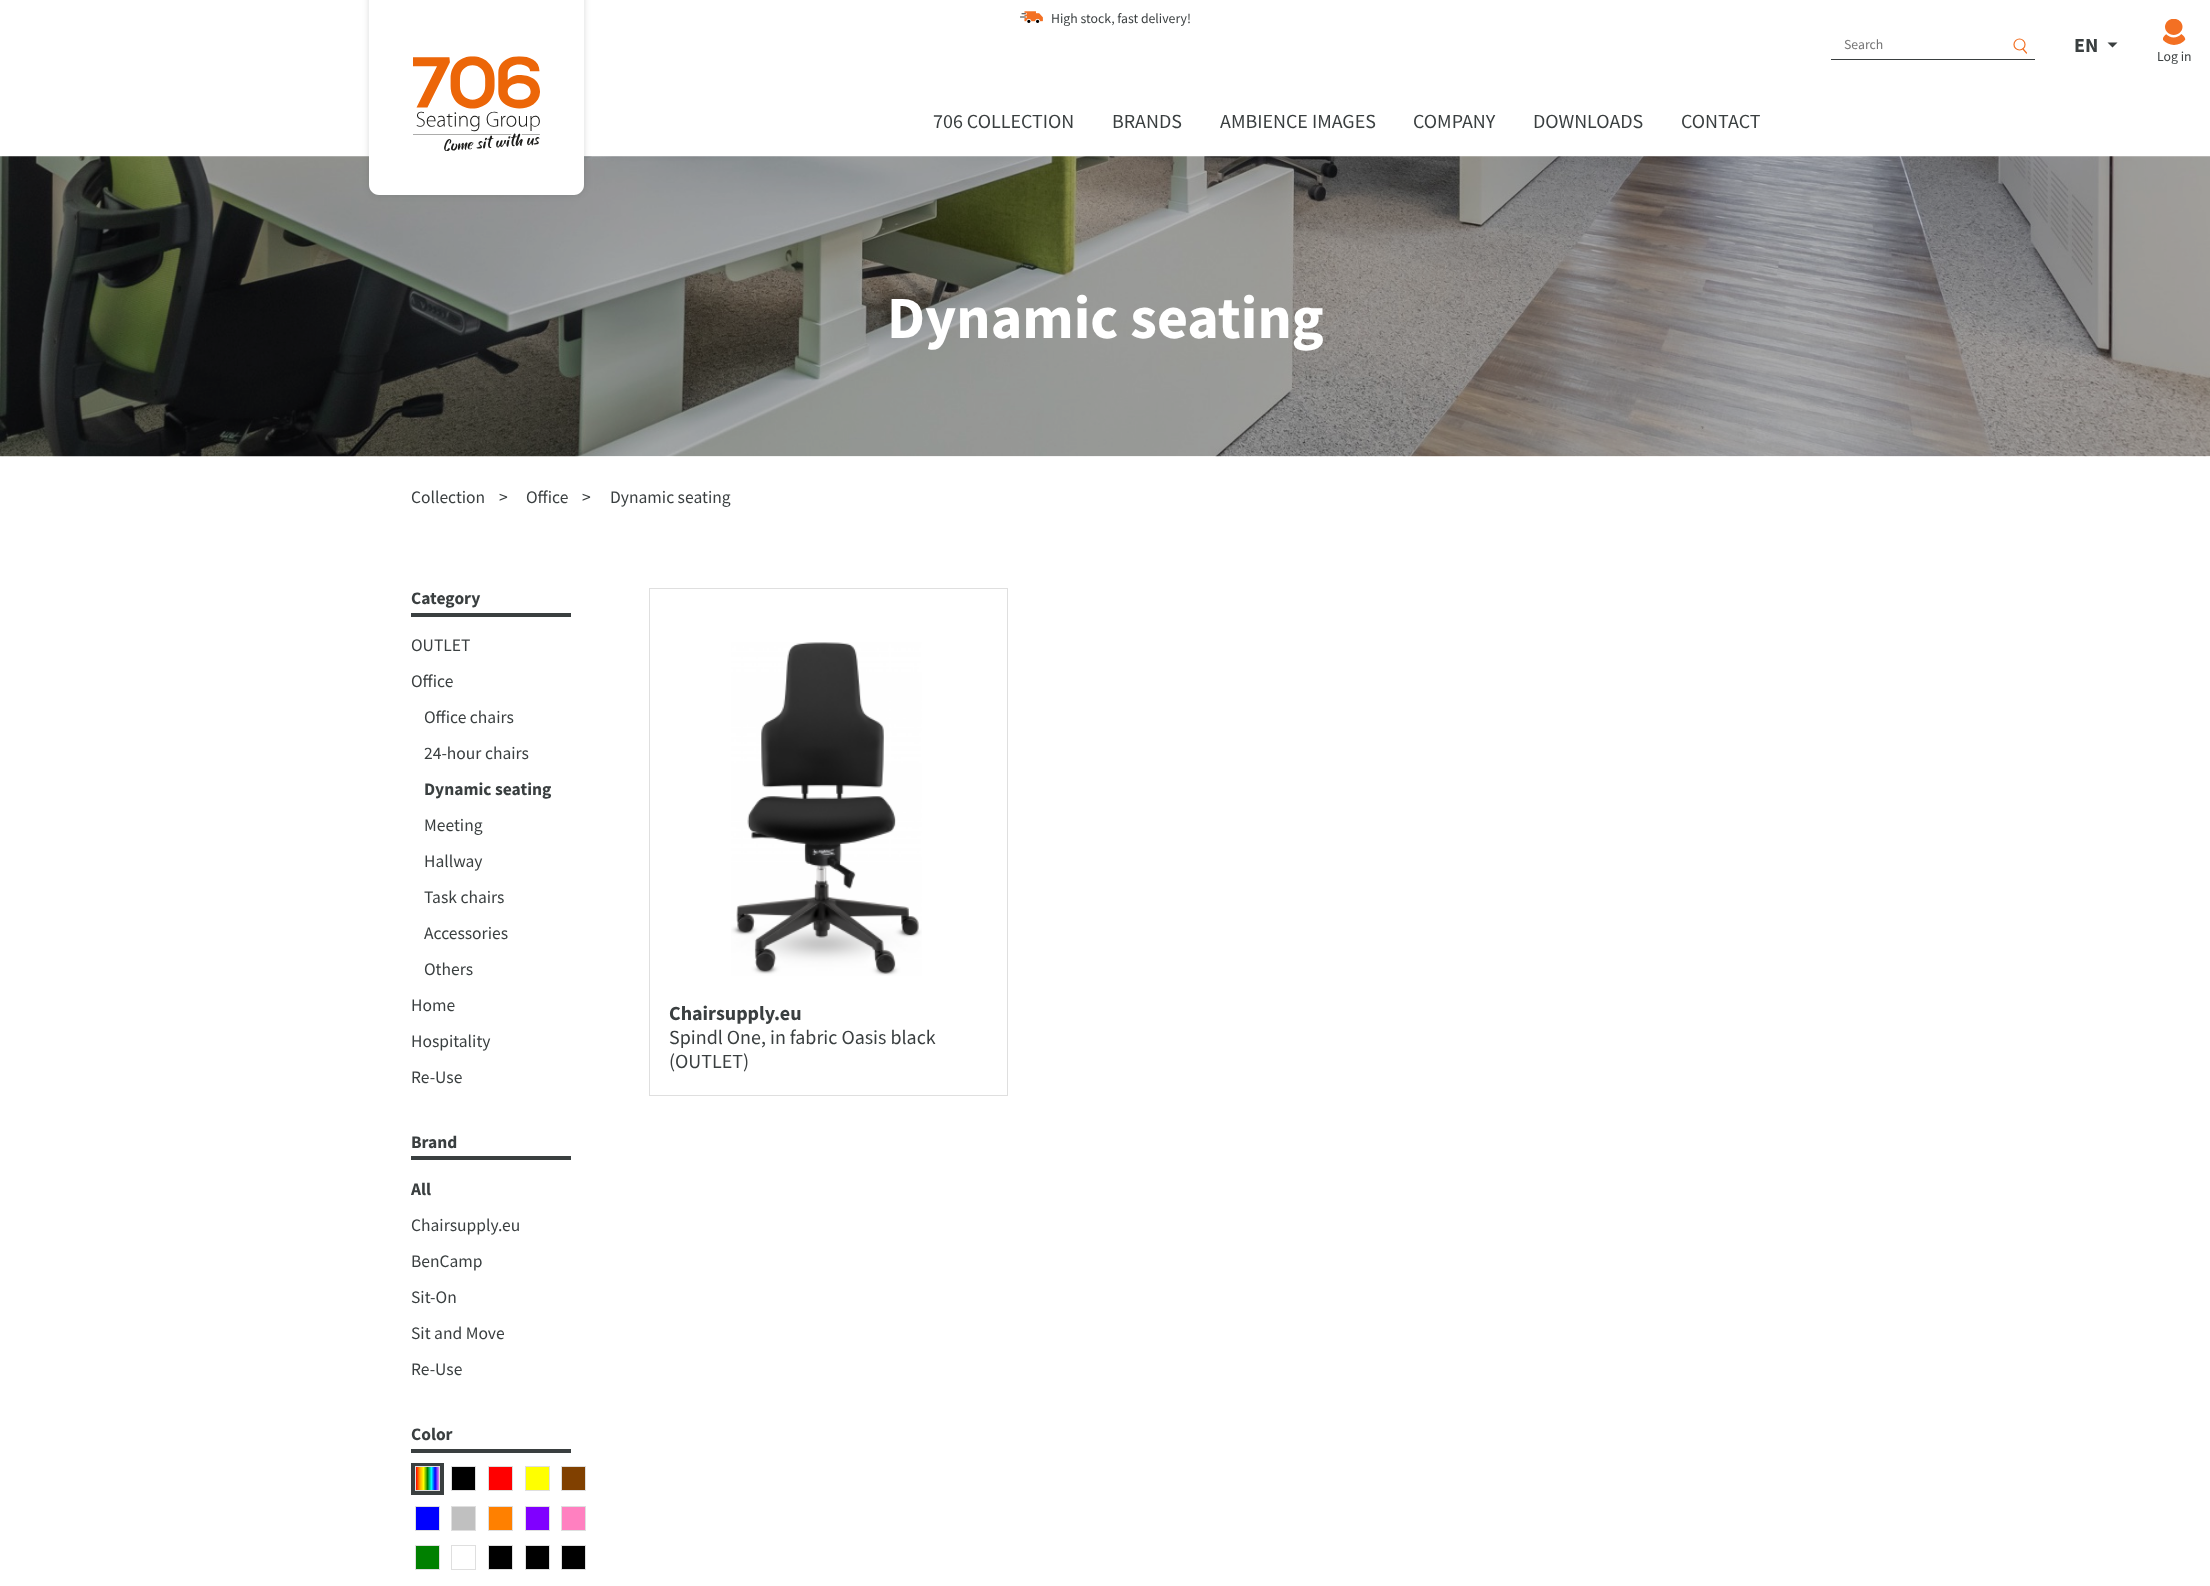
<?xml version="1.0" encoding="UTF-8"?>
<svg xmlns="http://www.w3.org/2000/svg" xmlns:xlink="http://www.w3.org/1999/xlink" width="2210" height="1586">
  <defs>
    <linearGradient id="g1" gradientUnits="userSpaceOnUse" x1="416" y1="1479" x2="439" y2="1479"><stop offset="0" stop-color="#ff0000" /><stop offset="0.17" stop-color="#ffa500" /><stop offset="0.33" stop-color="#ffff00" /><stop offset="0.5" stop-color="#008000" /><stop offset="0.67" stop-color="#00ffff" /><stop offset="0.83" stop-color="#0000ff" /><stop offset="1" stop-color="#ee82ee" /></linearGradient>
  </defs>
  <rect width="100%" height="100%" fill="#ffffff" />
  <image x="1020" y="11" width="23" height="12" xlink:href="image1.png" />
  <image x="0" y="156" width="2210" height="301" xlink:href="image4.png" />
  <rect x="369" y="-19" width="215" height="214" rx="10" fill="#3a3f40" fill-opacity="0.2" filter="blur(3px)" />
  <path d="M 369 -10 h 215 v 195 c 0 5.5 -4.5 10 -10 10 h -195 c -5.5 0 -10 -4.5 -10 -10 z" fill="#ffffff" />
  <image x="413" y="56" width="127" height="95" xlink:href="image2.png" />
  <rect x="1831" y="59" width="204" height="1" fill="#3a3f40" />
  <circle cx="2019.5" cy="44.5" r="5.5" fill="none" stroke="#f37023" stroke-width="1.2" />
  <path d="M 2023 49 l 3.5 4" fill="none" stroke="#f37023" stroke-width="1.2" stroke-linecap="round" />
  <path d="M 2107.5 42.5 h 10 l -5 5 z" fill="#3a3f40" />
  <image x="2163" y="19" width="23" height="26" xlink:href="image3.png" />
  <rect x="411" y="613" width="160" height="4" fill="#3a3f40" />
  <rect x="411" y="1156" width="160" height="4" fill="#3a3f40" />
  <rect x="411" y="1449" width="160" height="4" fill="#3a3f40" />
  <rect x="413" y="1465" width="29" height="28" fill="none" stroke="#3a3f40" stroke-width="4" />
  <rect x="416" y="1467" width="23" height="23" fill="url(#g1)" />
  <rect x="415.5" y="1466.5" width="24" height="24" fill="none" stroke="#dfdfdf" />
  <rect x="451.5" y="1466.5" width="24" height="24" fill="#000000" stroke="#dfdfdf" />
  <rect x="488.5" y="1466.5" width="24" height="24" fill="#ff0000" stroke="#dfdfdf" />
  <rect x="525.5" y="1466.5" width="24" height="24" fill="#ffff00" stroke="#dfdfdf" />
  <rect x="561.5" y="1466.5" width="24" height="24" fill="#804000" stroke="#dfdfdf" />
  <rect x="415.5" y="1506.5" width="24" height="24" fill="#0000ff" stroke="#dfdfdf" />
  <rect x="451.5" y="1506.5" width="24" height="24" fill="#c0c0c0" stroke="#dfdfdf" />
  <rect x="488.5" y="1506.5" width="24" height="24" fill="#ff8000" stroke="#dfdfdf" />
  <rect x="525.5" y="1506.5" width="24" height="24" fill="#8000ff" stroke="#dfdfdf" />
  <rect x="561.5" y="1506.5" width="24" height="24" fill="#ff80c0" stroke="#dfdfdf" />
  <rect x="415.5" y="1545.5" width="24" height="24" fill="#008000" stroke="#dfdfdf" />
  <rect x="451.5" y="1545.5" width="24" height="24" fill="none" stroke="#dfdfdf" />
  <rect x="488.5" y="1545.5" width="24" height="24" fill="#000000" stroke="#dfdfdf" />
  <rect x="525.5" y="1545.5" width="24" height="24" fill="#000000" stroke="#dfdfdf" />
  <rect x="561.5" y="1545.5" width="24" height="24" fill="#000000" stroke="#dfdfdf" />
  <rect x="649.5" y="588.5" width="358" height="507" fill="none" stroke="#dfdfdf" />
  <image x="731" y="642" width="191" height="334" xlink:href="image5.png" />
  <text x="1051" y="23" style="font-family: Source Sans Pro; font-size: 13.75px; fill: #3a3f40">High stock, fast delivery!</text>
  <text x="1844" y="49" style="font-family: Source Sans Pro; font-size: 13.75px; fill: #757575">Search</text>
  <text x="2074" y="52" style="font-family: Source Sans Pro; font-size: 20px; font-weight: bold; fill: #3a3f40">EN</text>
  <text x="2157" y="61" style="font-family: Source Sans Pro; font-size: 13.75px; fill: #3a3f40">Log in</text>
  <text x="933" y="128" style="font-family: Source Sans Pro; font-size: 20px; fill: #3a3f40">706 COLLECTION</text>
  <text x="1112" y="128" style="font-family: Source Sans Pro; font-size: 20px; fill: #3a3f40">BRANDS</text>
  <text x="1220" y="128" style="font-family: Source Sans Pro; font-size: 20px; fill: #3a3f40">AMBIENCE IMAGES</text>
  <text x="1413" y="128" style="font-family: Source Sans Pro; font-size: 20px; fill: #3a3f40">COMPANY</text>
  <text x="1533" y="128" style="font-family: Source Sans Pro; font-size: 20px; fill: #3a3f40">DOWNLOADS</text>
  <text x="1681" y="128" style="font-family: Source Sans Pro; font-size: 20px; fill: #3a3f40">CONTACT</text>
  <text x="887" y="338" style="font-family: Source Sans Pro; font-size: 60px; font-weight: bold; fill: #ffffff">Dynamic seating</text>
  <text x="411" y="503" style="font-family: Source Sans Pro; font-size: 17.5px; fill: #3a3f40">Collection</text>
  <text x="499" y="503" style="font-family: Source Sans Pro; font-size: 17.5px; fill: #3a3f40">&gt;</text>
  <text x="526" y="503" style="font-family: Source Sans Pro; font-size: 17.5px; fill: #3a3f40">Office</text>
  <text x="582" y="503" style="font-family: Source Sans Pro; font-size: 17.5px; fill: #3a3f40">&gt;</text>
  <text x="610" y="503" style="font-family: Source Sans Pro; font-size: 17.5px; fill: #3a3f40">Dynamic seating</text>
  <text x="411" y="604" style="font-family: Source Sans Pro; font-size: 17.5px; font-weight: bold; fill: #3a3f40">Category</text>
  <text x="411" y="651" style="font-family: Source Sans Pro; font-size: 17.5px; fill: #3a3f40">OUTLET</text>
  <text x="411" y="687" style="font-family: Source Sans Pro; font-size: 17.5px; fill: #3a3f40">Office</text>
  <text x="424" y="723" style="font-family: Source Sans Pro; font-size: 17.5px; fill: #3a3f40">Office chairs</text>
  <text x="424" y="759" style="font-family: Source Sans Pro; font-size: 17.5px; fill: #3a3f40">24-hour chairs</text>
  <text x="424" y="795" style="font-family: Source Sans Pro; font-size: 17.5px; font-weight: bold; fill: #3a3f40">Dynamic seating</text>
  <text x="424" y="831" style="font-family: Source Sans Pro; font-size: 17.5px; fill: #3a3f40">Meeting</text>
  <text x="424" y="867" style="font-family: Source Sans Pro; font-size: 17.5px; fill: #3a3f40">Hallway</text>
  <text x="424" y="903" style="font-family: Source Sans Pro; font-size: 17.5px; fill: #3a3f40">Task chairs</text>
  <text x="424" y="939" style="font-family: Source Sans Pro; font-size: 17.5px; fill: #3a3f40">Accessories</text>
  <text x="424" y="975" style="font-family: Source Sans Pro; font-size: 17.5px; fill: #3a3f40">Others</text>
  <text x="411" y="1011" style="font-family: Source Sans Pro; font-size: 17.5px; fill: #3a3f40">Home</text>
  <text x="411" y="1047" style="font-family: Source Sans Pro; font-size: 17.5px; fill: #3a3f40">Hospitality</text>
  <text x="411" y="1083" style="font-family: Source Sans Pro; font-size: 17.5px; fill: #3a3f40">Re-Use</text>
  <text x="411" y="1148" style="font-family: Source Sans Pro; font-size: 17.5px; font-weight: bold; fill: #3a3f40">Brand</text>
  <text x="411" y="1195" style="font-family: Source Sans Pro; font-size: 17.5px; font-weight: bold; fill: #3a3f40">All</text>
  <text x="411" y="1231" style="font-family: Source Sans Pro; font-size: 17.5px; fill: #3a3f40">Chairsupply.eu</text>
  <text x="411" y="1267" style="font-family: Source Sans Pro; font-size: 17.5px; fill: #3a3f40">BenCamp</text>
  <text x="411" y="1303" style="font-family: Source Sans Pro; font-size: 17.5px; fill: #3a3f40">Sit-On</text>
  <text x="411" y="1339" style="font-family: Source Sans Pro; font-size: 17.5px; fill: #3a3f40">Sit and Move</text>
  <text x="411" y="1375" style="font-family: Source Sans Pro; font-size: 17.5px; fill: #3a3f40">Re-Use</text>
  <text x="411" y="1440" style="font-family: Source Sans Pro; font-size: 17.5px; font-weight: bold; fill: #3a3f40">Color</text>
  <text x="669" y="1020" style="font-family: Source Sans Pro; font-size: 20px; font-weight: bold; fill: #3a3f40">Chairsupply.eu</text>
  <text x="669" y="1044" style="font-family: Source Sans Pro; font-size: 20px; fill: #3a3f40">Spindl One, in fabric Oasis black</text>
  <text x="669" y="1068" style="font-family: Source Sans Pro; font-size: 20px; fill: #3a3f40">(OUTLET)</text>
</svg>
